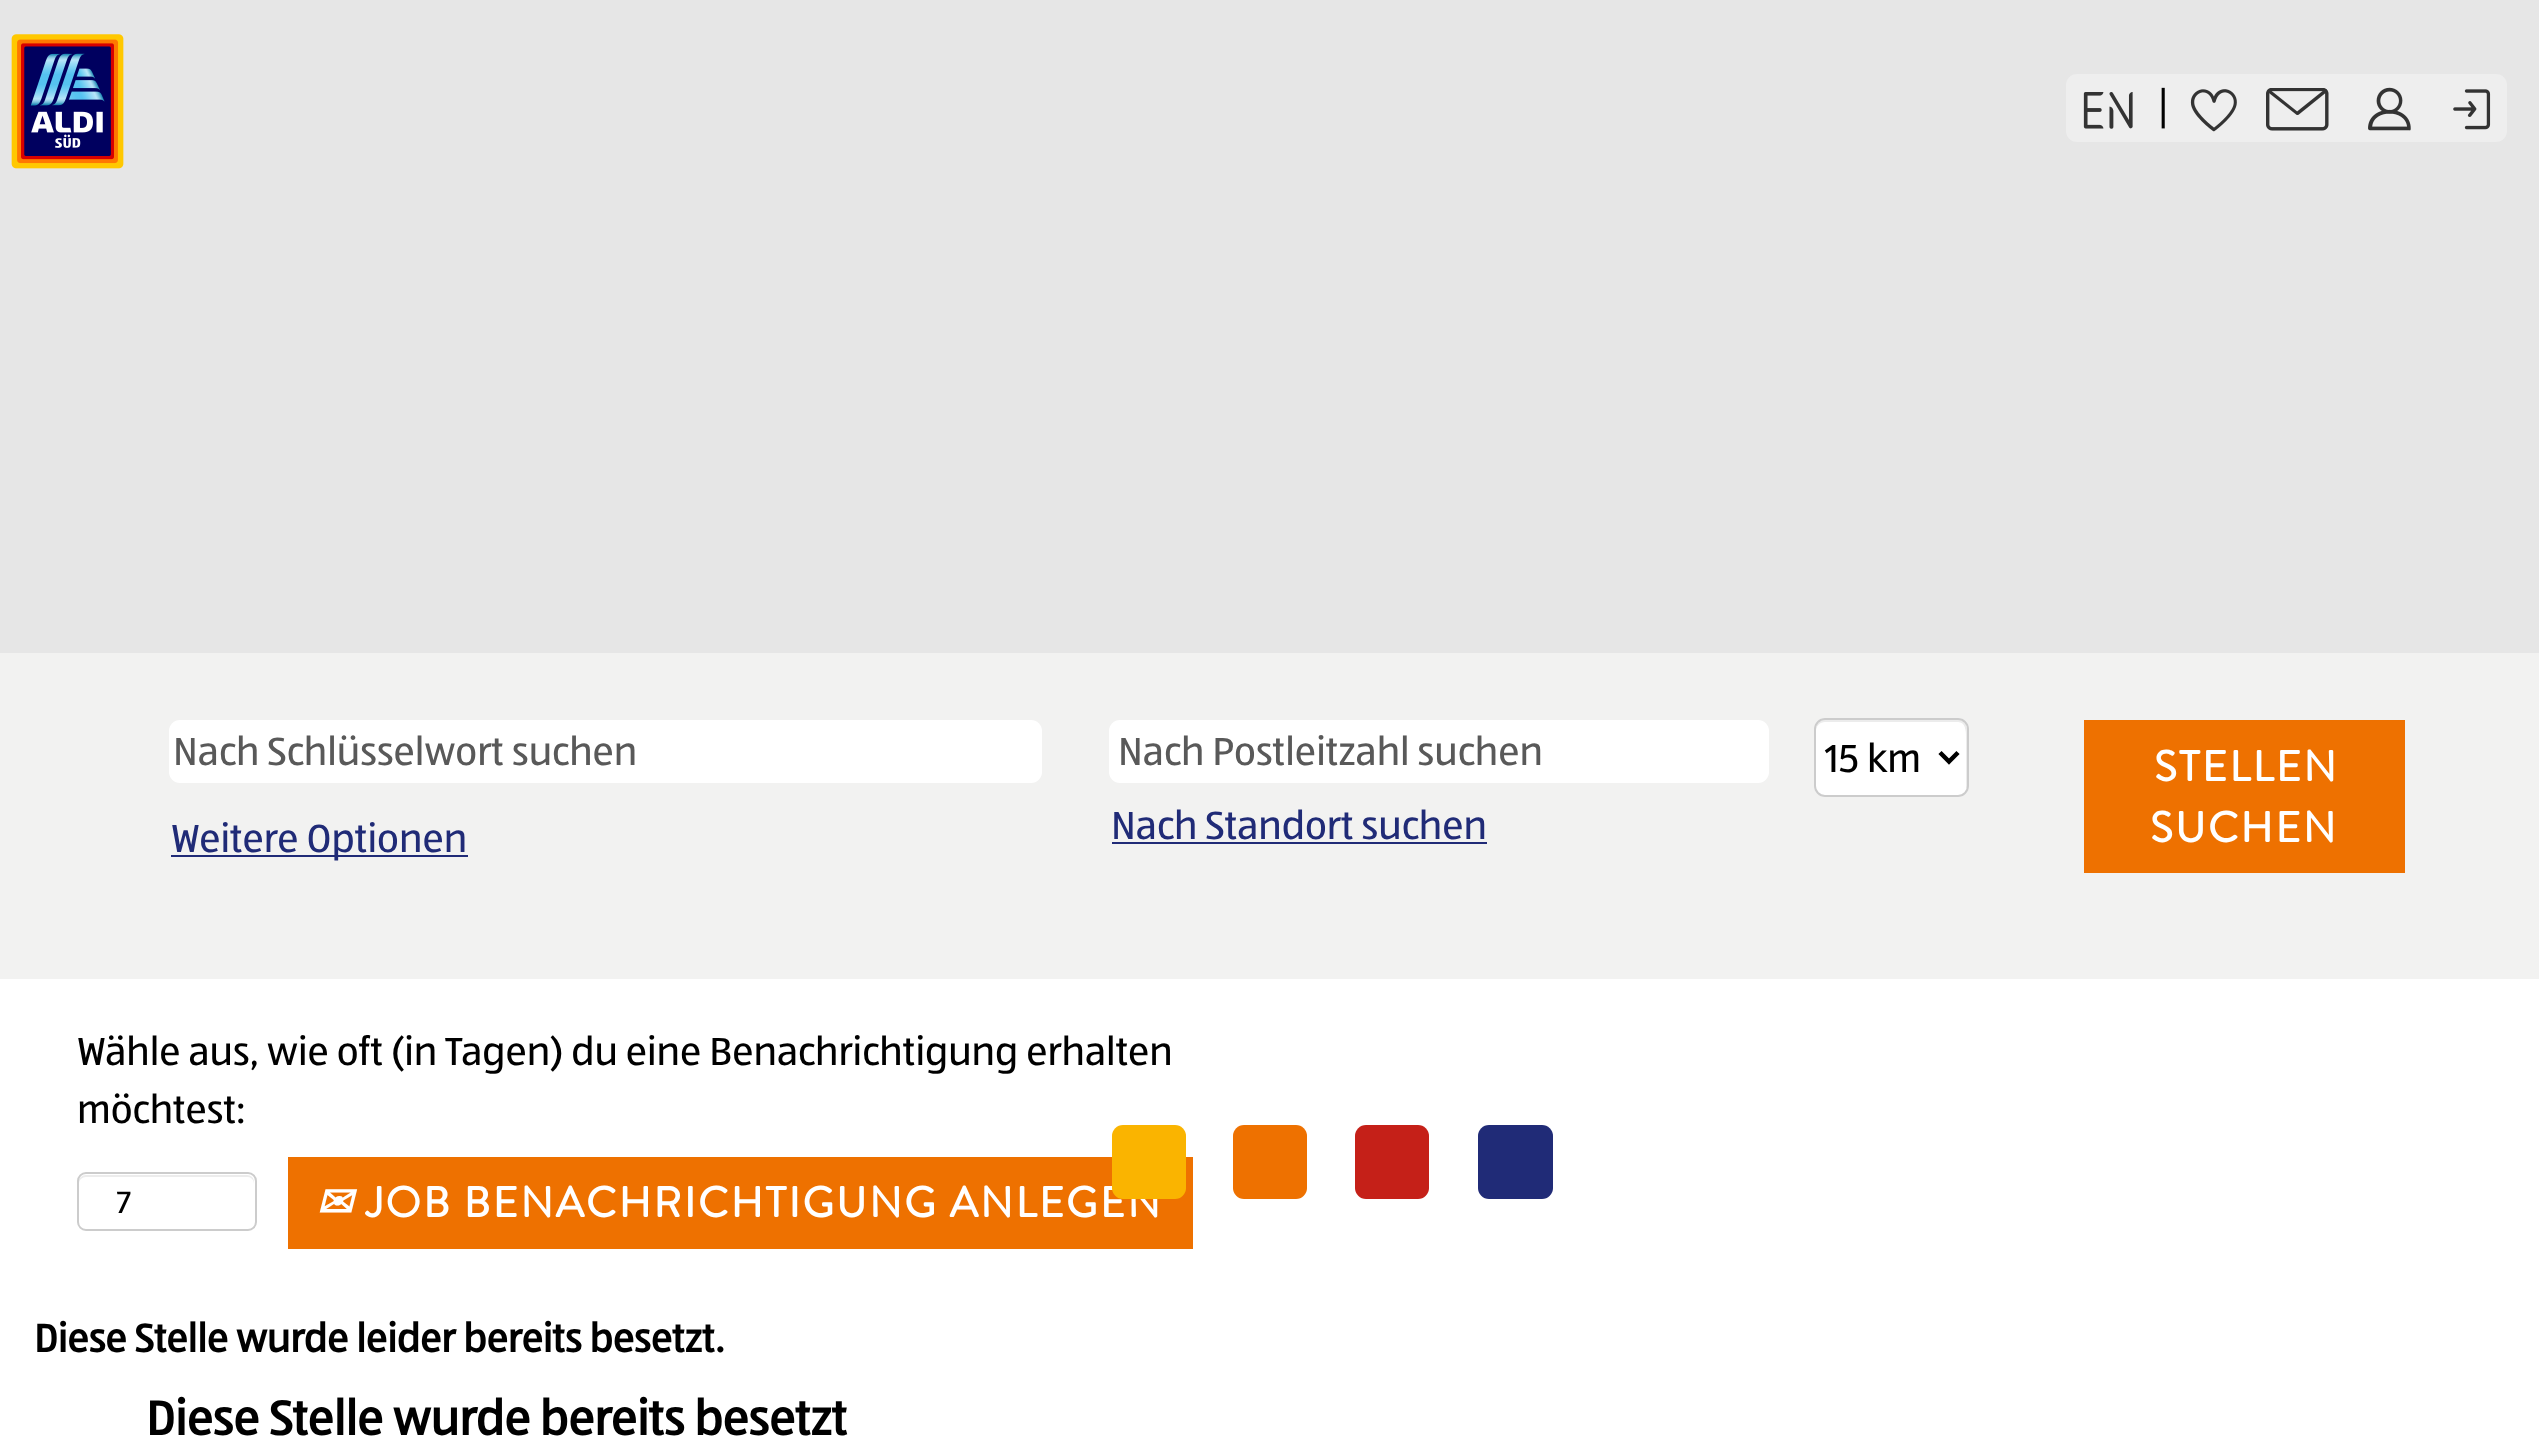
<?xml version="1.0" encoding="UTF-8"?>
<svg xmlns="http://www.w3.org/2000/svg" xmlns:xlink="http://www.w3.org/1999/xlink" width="2539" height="1454">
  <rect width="100%" height="100%" fill="#e6e6e6" />
  <image x="11" y="34" width="113" height="135" xlink:href="image1.png" />
  <rect x="2066" y="74" width="441" height="68" rx="11" fill="#eeeeee" />
  <image x="2083" y="92" width="50" height="37" xlink:href="image2.png" />
  <image x="2190" y="89" width="47" height="43" xlink:href="image3.png" />
  <image x="2266" y="88" width="63" height="43" xlink:href="image4.png" />
  <image x="2368" y="87" width="43" height="44" xlink:href="image5.png" />
  <image x="2453" y="89" width="38" height="41" xlink:href="image6.png" />
  <rect y="979" width="2539" height="475" fill="#ffffff" />
  <rect y="653" width="2539" height="326" fill="#f2f2f1" />
  <rect x="169" y="720" width="873" height="63" rx="11" fill="#ffffff" />
  <rect x="1109" y="720" width="660" height="63" rx="11" fill="#ffffff" />
  <rect x="1814" y="718" width="155" height="79" rx="11" fill="#ffffff" />
  <path d="M 1825 722 h 133 c 9 0 8 13 8 18 v 49 c 1 -1 1 -2 1 -4 v -56 c 0 -5 -4 -9 -9 -9 h -133 c -5 0 -9 4 -9 9 v 2 c 0 -5 4 -9 9 -9 z" fill="#ececec" />
  <rect x="1815" y="719" width="153" height="77" rx="10" fill="none" stroke="#cccccc" stroke-width="2" />
  <path d="M 1940 752.5 l 9 9 l 9 -9" fill="none" stroke="#000000" stroke-width="4.5" />
  <rect x="1112" y="842" width="375" height="2" fill="#202b77" />
  <rect x="171" y="855" width="297" height="2" fill="#202b77" />
  <rect x="2084" y="720" width="321" height="153" fill="#ee7100" />
  <path d="M 86 1177 h 162 c 3 0 6 3 6 7 v -2 c 0 -4 -3 -7 -7 -7 h -161 c -4 0 -7 3 -7 7 v 2 c 0 -4 3 -7 7 -7 z" fill="#ececec" />
  <rect x="78" y="1173" width="178" height="57" rx="8" fill="none" stroke="#cccccc" stroke-width="2" />
  <rect x="288" y="1157" width="905" height="92" fill="#ee7100" />
  <rect x="1233" y="1125" width="74" height="74" rx="11" fill="#ee7100" />
  <rect x="1355" y="1125" width="74" height="74" rx="11" fill="#c52018" />
  <rect x="1478" y="1125" width="75" height="74" rx="11" fill="#202b77" />
  <text x="2158" y="120" style="font-family: 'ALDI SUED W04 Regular'; font-size: 40.5px; fill: #000000">|</text>
  <text x="173" y="765" style="font-family: 'ALDI SUED W04 Regular'; font-size: 40.5px; fill: #595959">Nach Schlüsselwort suchen</text>
  <text x="1118" y="765" style="font-family: 'ALDI SUED W04 Regular'; font-size: 40.5px; fill: #595959">Nach Postleitzahl suchen</text>
  <text x="1825" y="772" style="font-family: 'ALDI SUED W04 Regular'; font-size: 40.5px; fill: #000000">15 km</text>
  <text x="1111" y="839" style="font-family: 'ALDI SUED W04 Regular'; font-size: 40.5px; fill: #202b77">Nach Standort suchen</text>
  <text x="171" y="852" style="font-family: 'ALDI SUED W04 Regular'; font-size: 40.5px; fill: #202b77">Weitere Optionen</text>
  <text x="2154" y="781" style="font-family: Brandon Grotesque; font-size: 42.75px; font-weight: bold; letter-spacing: 2.25px; fill: #ffffff">STELLEN</text>
  <text x="2150" y="842" style="font-family: Brandon Grotesque; font-size: 42.75px; font-weight: bold; letter-spacing: 2.25px; fill: #ffffff">SUCHEN</text>
  <text x="77" y="1065" style="font-family: 'ALDI SUED W04 Regular'; font-size: 40.5px; fill: #000000">Wähle aus, wie oft (in Tagen) du eine Benachrichtigung erhalten</text>
  <text x="77" y="1123" style="font-family: 'ALDI SUED W04 Regular'; font-size: 40.5px; fill: #000000">möchtest:</text>
  <text x="117" y="1213" style="font-family: 'ALDI SUED W04 Regular'; font-size: 32px; fill: #000000">7</text>
  <text x="316" y="1217" style="font-family: DejaVu Sans; font-size: 42.75px; font-weight: bold; font-style: italic; letter-spacing: 2.25px; fill: #ffffff">✉</text>
  <text x="366" y="1217" style="font-family: Brandon Grotesque; font-size: 42.75px; font-weight: bold; letter-spacing: 2.25px; fill: #ffffff">JOB BENACHRICHTIGUNG ANLEGEN</text>
  <text x="34" y="1352" style="font-family: 'ALDI SUED W04 Regular'; font-size: 40.5px; font-weight: bold; fill: #000000">Diese Stelle wurde leider bereits besetzt.</text>
  <text x="146" y="1435" style="font-family: 'ALDI SUED W04 Regular'; font-size: 49.5px; font-weight: bold; fill: #000000">Diese Stelle wurde bereits besetzt</text>
  <rect x="1112" y="1125" width="74" height="74" rx="11" fill="#fab400" />
</svg>
